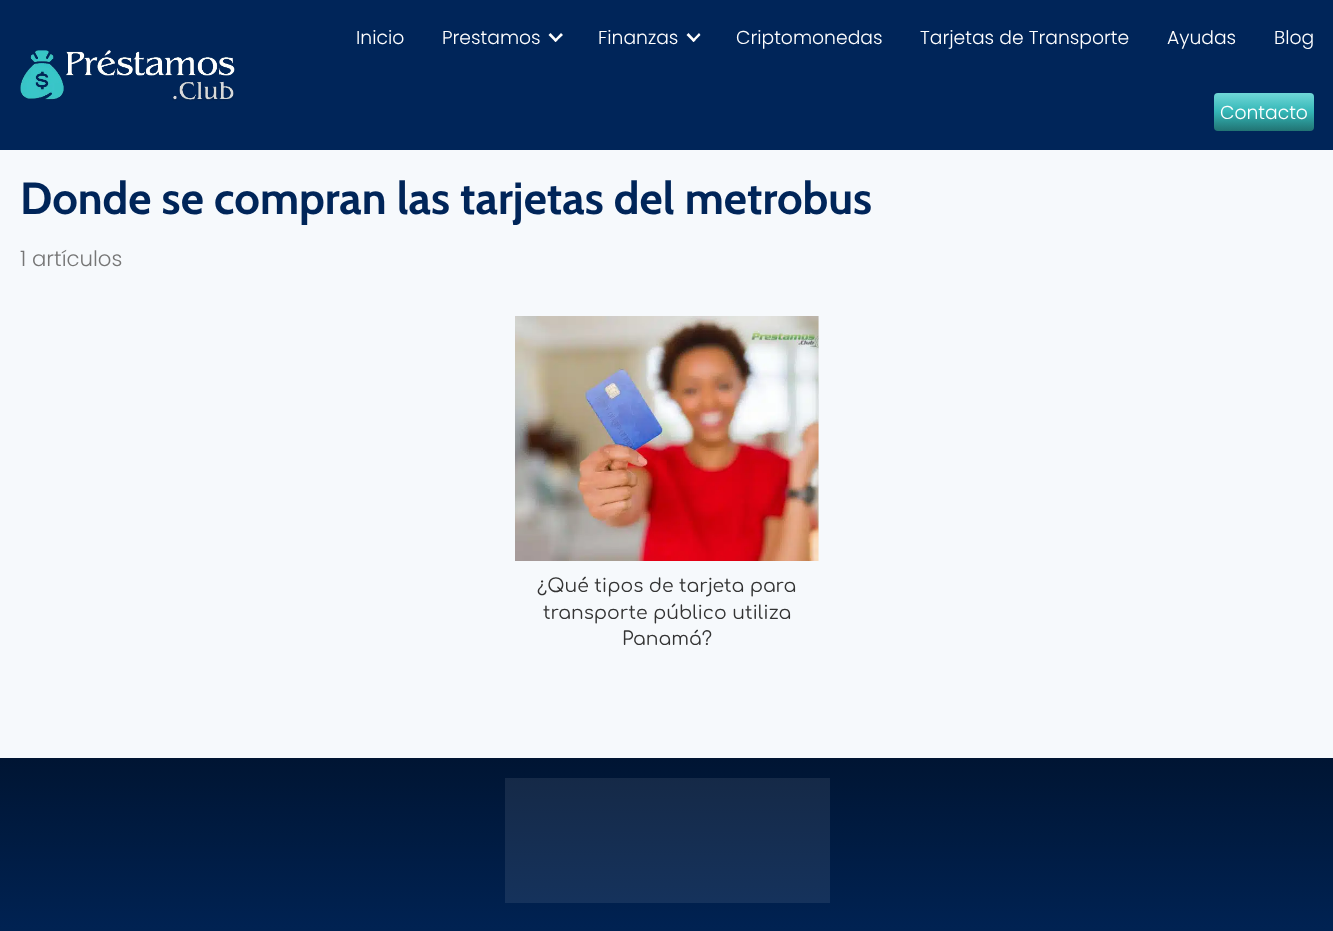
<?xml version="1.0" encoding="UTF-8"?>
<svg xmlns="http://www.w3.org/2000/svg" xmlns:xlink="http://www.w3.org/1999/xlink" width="1333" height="931">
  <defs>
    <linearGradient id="g1" gradientUnits="userSpaceOnUse" x1="1264" y1="131" x2="1264" y2="93"><stop offset="0" stop-color="#247f7f" /><stop offset="0" stop-color="#0343ba" /><stop offset="0" stop-color="#c2c2c2" /><stop offset="0" stop-color="#1376a4" /><stop offset="0" stop-color="#0343ba" /><stop offset="0" stop-color="#217373" /><stop offset="0.51" stop-color="#34b7b7" /><stop offset="1" stop-color="#70d7d7" /></linearGradient>
    <linearGradient id="g2" gradientUnits="userSpaceOnUse" x1="667" y1="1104" x2="667" y2="758"><stop offset="0" stop-color="#001533" /><stop offset="0" stop-color="#0343ba" /><stop offset="0" stop-color="#c2c2c2" /><stop offset="0" stop-color="#1376a4" /><stop offset="0" stop-color="#0343ba" /><stop offset="0" stop-color="#001129" /><stop offset="0.51" stop-color="#002252" /><stop offset="1" stop-color="#001533" /></linearGradient>
    <linearGradient id="g3" gradientUnits="userSpaceOnUse" x1="667" y1="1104" x2="667" y2="758"><stop offset="0" stop-color="#152844" /><stop offset="0" stop-color="#1752bd" /><stop offset="0" stop-color="#c3c4c5" /><stop offset="0" stop-color="#267faa" /><stop offset="0" stop-color="#1752bd" /><stop offset="0" stop-color="#15253b" /><stop offset="0.51" stop-color="#153460" /><stop offset="1" stop-color="#152844" /></linearGradient>
  </defs>
  <rect width="100%" height="100%" fill="#f6f9fc" />
  <rect width="1333" height="150" fill="#002559" />
  <image x="20" y="50" width="215" height="51" xlink:href="image1.png" />
  <path d="M 561 33 l 2 2 l -7.5 7 l -1.5 -1.5 z" fill="#ffffff" />
  <path d="M 550.5 33 l 7 7.5 l -2 1.5 l -7 -7 z" fill="#ffffff" />
  <path d="M 699 33 l 1.5 2 l -7 7 l -1.5 -1.5 z" fill="#ffffff" />
  <path d="M 688.5 33 l 7 7.5 l -2 1.5 l -7 -7 z" fill="#ffffff" />
  <rect x="1214" y="93" width="100" height="38" rx="4" fill="url(#g1)" />
  <image x="515" y="316" width="304" height="245" xlink:href="image2.png" />
  <rect y="758" width="1333" height="173" fill="url(#g2)" />
  <rect x="505" y="778" width="325" height="125" fill="url(#g3)" />
  <text x="356" y="44" style="font-family: Poppins; font-size: 18.75px; font-weight: 300; fill: #ffffff">Inicio</text>
  <text x="442" y="44" style="font-family: Poppins; font-size: 18.75px; font-weight: 300; fill: #ffffff">Prestamos</text>
  <text x="598" y="44" style="font-family: Poppins; font-size: 18.75px; font-weight: 300; fill: #ffffff">Finanzas</text>
  <text x="736" y="44" style="font-family: Poppins; font-size: 18.75px; font-weight: 300; fill: #ffffff">Criptomonedas</text>
  <text x="920" y="44" style="font-family: Poppins; font-size: 18.75px; font-weight: 300; fill: #ffffff">Tarjetas de Transporte</text>
  <text x="1167" y="44" style="font-family: Poppins; font-size: 18.75px; font-weight: 300; fill: #ffffff">Ayudas</text>
  <text x="1274" y="44" style="font-family: Poppins; font-size: 18.75px; font-weight: 300; fill: #ffffff">Blog</text>
  <text x="1220" y="119" style="font-family: Poppins; font-size: 18.75px; font-weight: 300; fill: #ffffff">Contacto</text>
  <text x="20" y="214" style="font-family: Cabin; font-size: 45px; font-weight: bold; fill: #002559">Donde se compran las tarjetas del metrobus</text>
  <text x="20" y="266" style="font-family: Poppins; font-size: 21.25px; font-weight: 300; fill: #767676">1 artículos</text>
  <text x="537" y="592" style="font-family: Comfortaa; font-size: 18.75px; fill: #333333">¿Qué tipos de tarjeta para</text>
  <text x="543" y="619" style="font-family: Comfortaa; font-size: 18.75px; fill: #333333">transporte público utiliza</text>
  <text x="622" y="645" style="font-family: Comfortaa; font-size: 18.75px; fill: #333333">Panamá?</text>
</svg>
